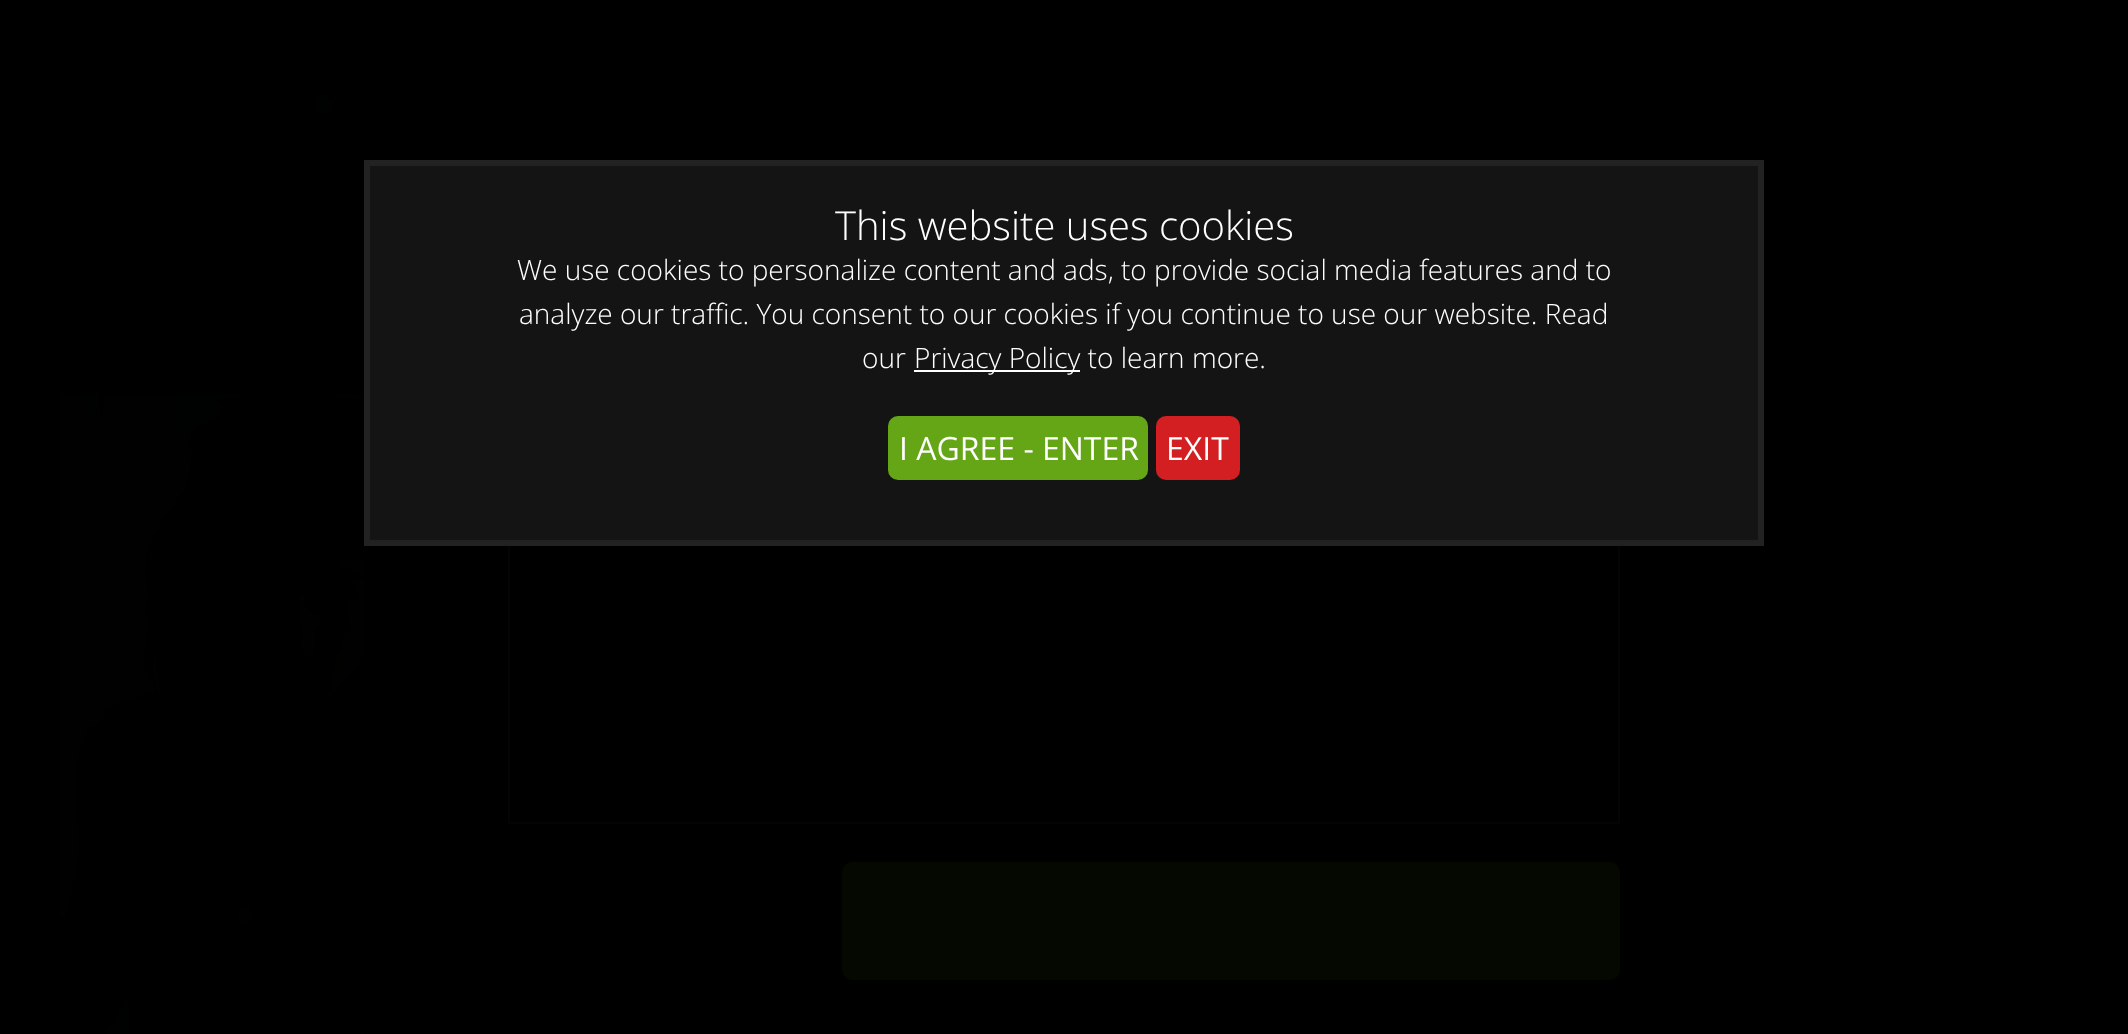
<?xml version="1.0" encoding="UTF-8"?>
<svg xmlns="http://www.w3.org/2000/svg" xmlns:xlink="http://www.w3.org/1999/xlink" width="2128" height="1034">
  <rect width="100%" height="100%" fill="#000000" />
  <image x="71" y="54" width="317" height="90" xlink:href="image1.png" />
  <image x="109" y="318" width="27" height="18" xlink:href="image2.png" />
  <image x="60" y="394" width="304" height="640" xlink:href="image3.png" />
  <rect x="509" y="345" width="1110" height="478" fill="none" stroke="#040404" stroke-width="2" />
  <rect x="367" y="163" width="1394" height="380" fill="#141414" stroke="#222222" stroke-width="6" />
  <rect x="914" y="370" width="166" height="2" fill="#ffffff" />
  <rect x="888" y="416" width="260" height="64" rx="10" fill="#65a616" />
  <rect x="1156" y="416" width="84" height="64" rx="10" fill="#d41f22" />
  <rect x="842" y="862" width="778" height="118" rx="10" fill="#050801" />
  <text x="835" y="240" style="font-family: Open Sans; font-size: 40px; font-weight: 300; fill: #ffffff">This website uses cookies</text>
  <text x="517" y="280" style="font-family: Open Sans; font-size: 28px; font-weight: 300; fill: #ffffff">We use cookies to personalize content and ads, to provide social media features and to</text>
  <text x="519" y="324" style="font-family: Open Sans; font-size: 28px; font-weight: 300; fill: #ffffff">analyze our traffic. You consent to our cookies if you continue to use our website. Read</text>
  <text x="862" y="368" style="font-family: Open Sans; font-size: 28px; font-weight: 300; fill: #ffffff">our</text>
  <text x="914" y="368" style="font-family: Open Sans; font-size: 28px; font-weight: 300; fill: #ffffff">Privacy Policy to learn more.</text>
  <text x="899" y="460" style="font-family: Open Sans; font-size: 32px; fill: #ffffff">I AGREE - ENTER</text>
  <text x="1166" y="460" style="font-family: Open Sans; font-size: 32px; fill: #ffffff">EXIT</text>
</svg>
